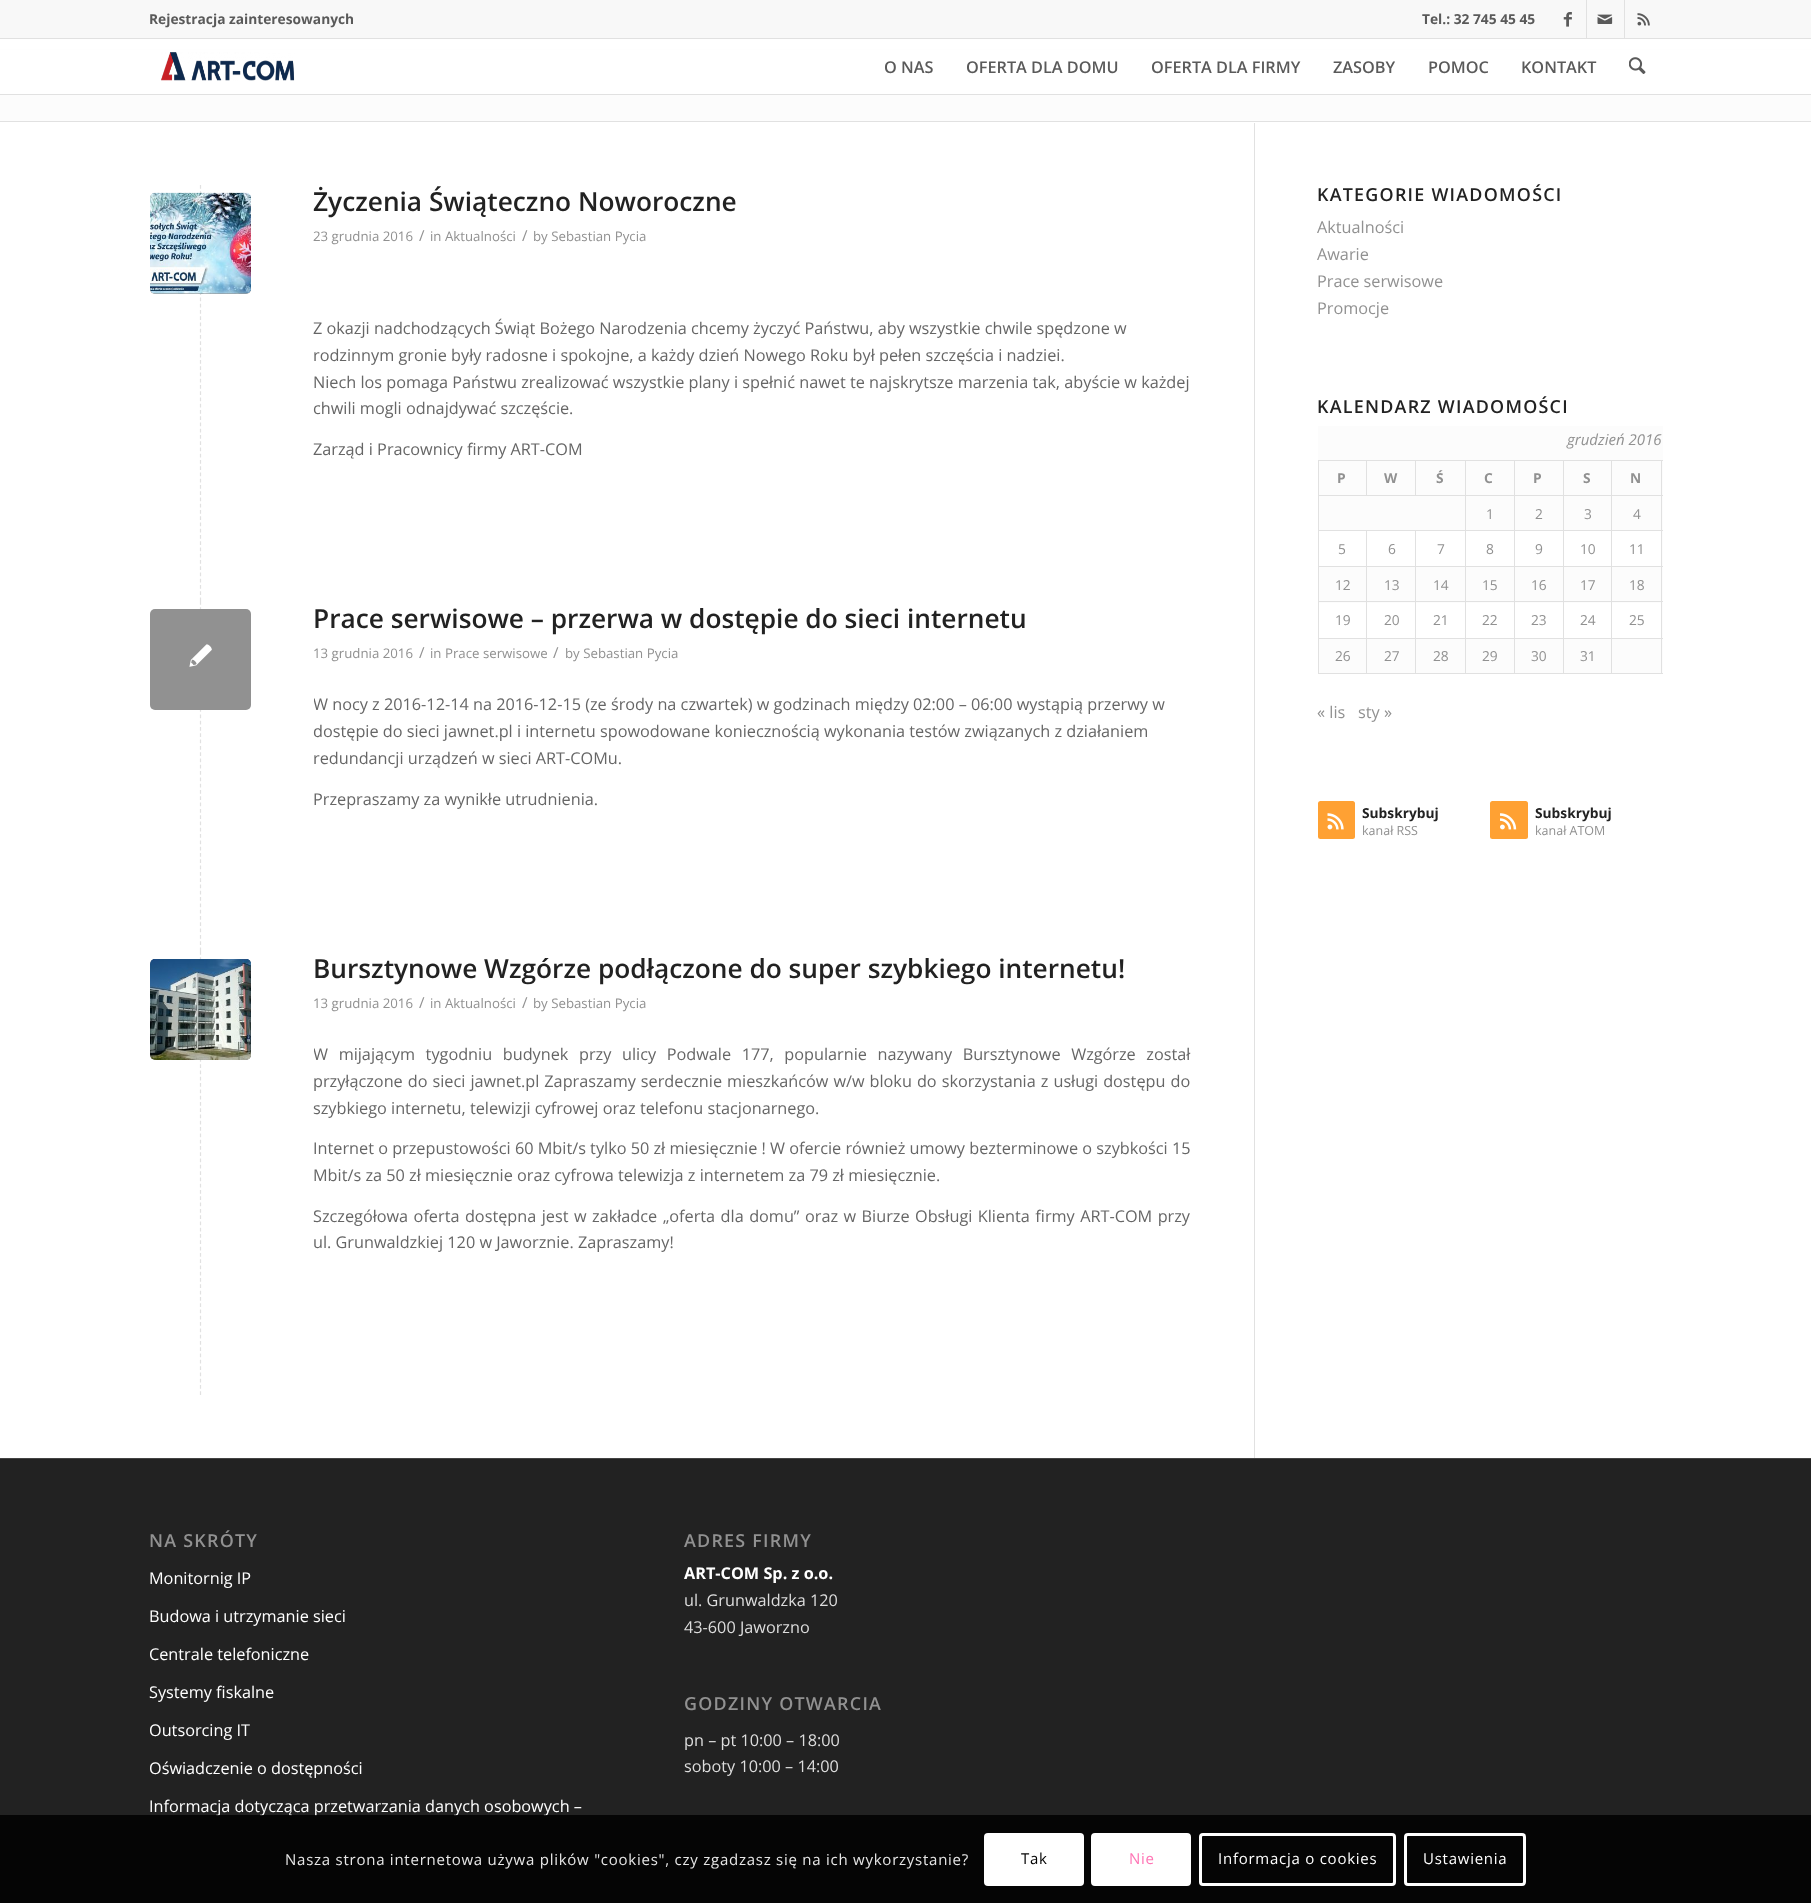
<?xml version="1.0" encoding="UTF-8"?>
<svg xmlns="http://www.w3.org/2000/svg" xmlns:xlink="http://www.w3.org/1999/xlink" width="1811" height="1903">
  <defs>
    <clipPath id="clip1"><rect x="314" y="601" width="940" height="350" /></clipPath>
    <clipPath id="clip2"><rect x="314" y="951" width="940" height="444" /></clipPath>
  </defs>
  <rect width="100%" height="100%" fill="#ffffff" />
  <rect width="1811" height="38" fill="#f8f8f8" />
  <rect y="38" width="1811" height="1" fill="#e1e1e1" />
  <rect x="1586" width="1" height="38" fill="#e1e1e1" />
  <image x="1563" y="12" width="9" height="15" xlink:href="image1.png" />
  <rect x="1624" width="1" height="38" fill="#e1e1e1" />
  <image x="1597" y="14" width="16" height="10" xlink:href="image2.png" />
  <image x="1637" y="13" width="13" height="13" xlink:href="image3.png" />
  <rect y="50" width="1811" height="71" fill="#fcfcfc" />
  <rect y="49" width="1811" height="1" fill="#e1e1e1" />
  <rect y="49" width="1811" height="45" fill="#ffffff" fill-opacity="0.95" />
  <rect y="94" width="1811" height="1" fill="#e1e1e1" />
  <image x="161" y="52" width="134" height="29" xlink:href="image4.png" />
  <image x="1629" y="57" width="17" height="17" xlink:href="image5.png" />
  <rect y="121" width="1811" height="1" fill="#e1e1e1" />
  <rect x="1254" y="123" width="1" height="1335" fill="#e1e1e1" />
  <path d="M 200.5 185 v 416" fill="none" stroke="#e1e1e1" stroke-width="1.2" stroke-dasharray="3.75 2.5" />
  <rect x="150" y="193" width="101" height="101" rx="5" fill="#919191" />
  <image x="150" y="192" width="101" height="102" xlink:href="image6.png" />
  <path d="M 200.5 601 v 350" fill="none" stroke="#e1e1e1" stroke-width="1.2" stroke-dasharray="3.75 2.55" />
  <rect x="150" y="609" width="101" height="101" rx="5" fill="#919191" />
  <image x="189" y="644" width="23" height="23" xlink:href="image7.png" />
  <path d="M 200.5 951 v 444" fill="none" stroke="#e1e1e1" stroke-width="1.2" stroke-dasharray="3.75 2.54" />
  <rect x="150" y="959" width="101" height="101" rx="5" fill="#919191" />
  <image x="150" y="959" width="101" height="101" xlink:href="image8.png" />
  <rect x="1318" y="426" width="345" height="247" fill="#fcfcfc" />
  <rect x="1318" y="460" width="345" height="1" fill="#e1e1e1" />
  <rect x="1318" y="495" width="345" height="1" fill="#e1e1e1" />
  <rect x="1366" y="460" width="1" height="36" fill="#e1e1e1" />
  <rect x="1661" y="530" width="1" height="144" fill="#e1e1e1" />
  <rect x="1661" y="495" width="1" height="36" fill="#e1e1e1" />
  <rect x="1319" y="531" width="342" height="35" fill="#ffffff" />
  <rect x="1319" y="603" width="342" height="35" fill="#ffffff" />
  <rect x="1611" y="673" width="52" height="1" fill="#e1e1e1" />
  <rect x="1611" y="638" width="1" height="36" fill="#e1e1e1" />
  <rect x="1611" y="638" width="52" height="1" fill="#e1e1e1" />
  <rect x="1611" y="601" width="1" height="38" fill="#e1e1e1" />
  <rect x="1611" y="601" width="52" height="1" fill="#e1e1e1" />
  <rect x="1611" y="566" width="1" height="37" fill="#e1e1e1" />
  <rect x="1611" y="566" width="52" height="1" fill="#e1e1e1" />
  <rect x="1611" y="530" width="1" height="38" fill="#e1e1e1" />
  <rect x="1611" y="530" width="52" height="1" fill="#e1e1e1" />
  <rect x="1611" y="495" width="1" height="36" fill="#e1e1e1" />
  <rect x="1563" y="673" width="50" height="1" fill="#e1e1e1" />
  <rect x="1563" y="638" width="1" height="36" fill="#e1e1e1" />
  <rect x="1563" y="638" width="50" height="1" fill="#e1e1e1" />
  <rect x="1563" y="601" width="1" height="38" fill="#e1e1e1" />
  <rect x="1563" y="601" width="50" height="1" fill="#e1e1e1" />
  <rect x="1563" y="566" width="1" height="37" fill="#e1e1e1" />
  <rect x="1563" y="566" width="50" height="1" fill="#e1e1e1" />
  <rect x="1563" y="530" width="1" height="38" fill="#e1e1e1" />
  <rect x="1563" y="530" width="50" height="1" fill="#e1e1e1" />
  <rect x="1563" y="495" width="1" height="36" fill="#e1e1e1" />
  <rect x="1514" y="673" width="50" height="1" fill="#e1e1e1" />
  <rect x="1514" y="638" width="1" height="36" fill="#e1e1e1" />
  <rect x="1514" y="638" width="50" height="1" fill="#e1e1e1" />
  <rect x="1514" y="601" width="1" height="38" fill="#e1e1e1" />
  <rect x="1514" y="601" width="50" height="1" fill="#e1e1e1" />
  <rect x="1514" y="566" width="1" height="37" fill="#e1e1e1" />
  <rect x="1514" y="566" width="50" height="1" fill="#e1e1e1" />
  <rect x="1514" y="530" width="1" height="38" fill="#e1e1e1" />
  <rect x="1514" y="530" width="50" height="1" fill="#e1e1e1" />
  <rect x="1514" y="495" width="1" height="36" fill="#e1e1e1" />
  <rect x="1465" y="673" width="50" height="1" fill="#e1e1e1" />
  <rect x="1465" y="638" width="1" height="36" fill="#e1e1e1" />
  <rect x="1465" y="638" width="50" height="1" fill="#e1e1e1" />
  <rect x="1465" y="601" width="1" height="38" fill="#e1e1e1" />
  <rect x="1465" y="601" width="50" height="1" fill="#e1e1e1" />
  <rect x="1465" y="566" width="1" height="37" fill="#e1e1e1" />
  <rect x="1465" y="566" width="50" height="1" fill="#e1e1e1" />
  <rect x="1465" y="530" width="1" height="38" fill="#e1e1e1" />
  <rect x="1465" y="530" width="50" height="1" fill="#e1e1e1" />
  <rect x="1465" y="495" width="1" height="36" fill="#e1e1e1" />
  <rect x="1415" y="673" width="51" height="1" fill="#e1e1e1" />
  <rect x="1415" y="638" width="1" height="36" fill="#e1e1e1" />
  <rect x="1415" y="638" width="51" height="1" fill="#e1e1e1" />
  <rect x="1415" y="601" width="1" height="38" fill="#e1e1e1" />
  <rect x="1415" y="601" width="51" height="1" fill="#e1e1e1" />
  <rect x="1415" y="566" width="1" height="37" fill="#e1e1e1" />
  <rect x="1415" y="566" width="51" height="1" fill="#e1e1e1" />
  <rect x="1415" y="530" width="1" height="38" fill="#e1e1e1" />
  <rect x="1366" y="673" width="50" height="1" fill="#e1e1e1" />
  <rect x="1366" y="638" width="1" height="36" fill="#e1e1e1" />
  <rect x="1366" y="638" width="50" height="1" fill="#e1e1e1" />
  <rect x="1366" y="601" width="1" height="38" fill="#e1e1e1" />
  <rect x="1366" y="601" width="50" height="1" fill="#e1e1e1" />
  <rect x="1366" y="566" width="1" height="37" fill="#e1e1e1" />
  <rect x="1366" y="566" width="50" height="1" fill="#e1e1e1" />
  <rect x="1366" y="530" width="1" height="38" fill="#e1e1e1" />
  <rect x="1318" y="673" width="50" height="1" fill="#e1e1e1" />
  <rect x="1318" y="638" width="1" height="36" fill="#e1e1e1" />
  <rect x="1318" y="638" width="50" height="1" fill="#e1e1e1" />
  <rect x="1318" y="601" width="1" height="38" fill="#e1e1e1" />
  <rect x="1318" y="601" width="50" height="1" fill="#e1e1e1" />
  <rect x="1318" y="566" width="1" height="37" fill="#e1e1e1" />
  <rect x="1318" y="566" width="50" height="1" fill="#e1e1e1" />
  <rect x="1318" y="530" width="1" height="38" fill="#e1e1e1" />
  <rect x="1318" y="530" width="148" height="1" fill="#e1e1e1" />
  <rect x="1318" y="495" width="1" height="36" fill="#e1e1e1" />
  <rect x="1318" y="460" width="1" height="36" fill="#e1e1e1" />
  <rect x="1415" y="460" width="1" height="36" fill="#e1e1e1" />
  <rect x="1465" y="460" width="1" height="36" fill="#e1e1e1" />
  <rect x="1514" y="460" width="1" height="36" fill="#e1e1e1" />
  <rect x="1563" y="460" width="1" height="36" fill="#e1e1e1" />
  <rect x="1611" y="460" width="1" height="36" fill="#e1e1e1" />
  <rect x="1661" y="460" width="1" height="36" fill="#e1e1e1" />
  <rect x="1318" y="801" width="37" height="38" rx="2.5" fill="#ffa133" />
  <image x="1327" y="813" width="17" height="17" xlink:href="image9.png" />
  <rect x="1490" y="801" width="38" height="38" rx="2.5" fill="#ffa133" />
  <image x="1500" y="813" width="17" height="17" xlink:href="image10.png" />
  <rect y="1459" width="1811" height="444" fill="#222222" />
  <rect y="1458" width="1811" height="1" fill="#444444" />
  <text x="149" y="24" style="font-family: Open Sans; font-size: 13.75px; font-weight: bold; fill: #5a5a5a">Rejestracja zainteresowanych</text>
  <text x="1422" y="24" style="font-family: Open Sans; font-size: 13.75px; font-weight: bold; fill: #5a5a5a">Tel.: 32 745 45 45</text>
  <text x="884" y="73" style="font-family: Open Sans; font-size: 16.25px; font-weight: 600; fill: #5a5a5a">O NAS</text>
  <text x="966" y="73" style="font-family: Open Sans; font-size: 16.25px; font-weight: 600; fill: #5a5a5a">OFERTA DLA DOMU</text>
  <text x="1151" y="73" style="font-family: Open Sans; font-size: 16.25px; font-weight: 600; fill: #5a5a5a">OFERTA DLA FIRMY</text>
  <text x="1333" y="73" style="font-family: Open Sans; font-size: 16.25px; font-weight: 600; fill: #5a5a5a">ZASOBY</text>
  <text x="1428" y="73" style="font-family: Open Sans; font-size: 16.25px; font-weight: 600; fill: #5a5a5a">POMOC</text>
  <text x="1521" y="73" style="font-family: Open Sans; font-size: 16.25px; font-weight: 600; fill: #5a5a5a">KONTAKT</text>
  <text x="313" y="211" style="font-family: Open Sans; font-size: 26.25px; font-weight: 600; fill: #222222">Życzenia Świąteczno Noworoczne</text>
  <text x="313" y="241" style="font-family: Open Sans; font-size: 13.25px; fill: #919191">23 grudnia 2016</text>
  <text x="419" y="241" style="font-family: Open Sans; font-size: 15px; fill: #919191">/</text>
  <text x="430" y="241" style="font-family: Open Sans; font-size: 13.25px; fill: #919191">in Aktualności</text>
  <text x="522" y="241" style="font-family: Open Sans; font-size: 15px; fill: #919191">/</text>
  <text x="533" y="241" style="font-family: Open Sans; font-size: 13.25px; fill: #919191">by Sebastian Pycia</text>
  <text x="313" y="334" style="font-family: Open Sans; font-size: 16.25px; fill: #666666">Z okazji nadchodzących Świąt Bożego Narodzenia chcemy życzyć Państwu, aby wszystkie chwile spędzone w</text>
  <text x="313" y="361" style="font-family: Open Sans; font-size: 16.25px; fill: #666666">rodzinnym gronie były radosne i spokojne, a każdy dzień Nowego Roku był pełen szczęścia i nadziei.</text>
  <text x="313" y="388" style="font-family: Open Sans; font-size: 16.25px; fill: #666666">Niech los pomaga Państwu zrealizować wszystkie plany i spełnić nawet te najskrytsze marzenia tak, abyście w każdej</text>
  <text x="313" y="414" style="font-family: Open Sans; font-size: 16.25px; fill: #666666">chwili mogli odnajdywać szczęście.</text>
  <text x="313" y="455" style="font-family: Open Sans; font-size: 16.25px; fill: #666666">Zarząd i Pracownicy firmy ART-COM</text>
  <text x="313" y="628" style="font-family: Open Sans; font-size: 26.25px; font-weight: 600; fill: #222222">Prace serwisowe – przerwa w dostępie do sieci internetu</text>
  <text x="313" y="658" style="font-family: Open Sans; font-size: 13.25px; fill: #919191">13 grudnia 2016</text>
  <text x="419" y="658" style="font-family: Open Sans; font-size: 15px; fill: #919191">/</text>
  <text x="430" y="658" style="font-family: Open Sans; font-size: 13.25px; fill: #919191">in Prace serwisowe</text>
  <text x="553" y="658" style="font-family: Open Sans; font-size: 15px; fill: #919191">/</text>
  <text x="565" y="658" style="font-family: Open Sans; font-size: 13.25px; fill: #919191">by Sebastian Pycia</text>
  <g clip-path="url(#clip1)">
    <text x="313" y="710" style="font-family: Open Sans; font-size: 16.25px; fill: #666666">W nocy z 2016-12-14 na 2016-12-15 (ze środy na czwartek) w godzinach między 02:00 – 06:00 wystąpią przerwy w</text>
  </g>
  <text x="313" y="737" style="font-family: Open Sans; font-size: 16.25px; fill: #666666">dostępie do sieci jawnet.pl i internetu spowodowane koniecznością wykonania testów związanych z działaniem</text>
  <text x="313" y="764" style="font-family: Open Sans; font-size: 16.25px; fill: #666666">redundancji urządzeń w sieci ART-COMu.</text>
  <text x="313" y="805" style="font-family: Open Sans; font-size: 16.25px; fill: #666666">Przepraszamy za wynikłe utrudnienia.</text>
  <text x="313" y="978" style="font-family: Open Sans; font-size: 26.25px; font-weight: 600; fill: #222222">Bursztynowe Wzgórze podłączone do super szybkiego internetu!</text>
  <text x="313" y="1008" style="font-family: Open Sans; font-size: 13.25px; fill: #919191">13 grudnia 2016</text>
  <text x="419" y="1008" style="font-family: Open Sans; font-size: 15px; fill: #919191">/</text>
  <text x="430" y="1008" style="font-family: Open Sans; font-size: 13.25px; fill: #919191">in Aktualności</text>
  <text x="522" y="1008" style="font-family: Open Sans; font-size: 15px; fill: #919191">/</text>
  <text x="533" y="1008" style="font-family: Open Sans; font-size: 13.25px; fill: #919191">by Sebastian Pycia</text>
  <g clip-path="url(#clip2)">
    <text x="313" y="1060" word-spacing="6.4" style="font-family: Open Sans; font-size: 16.25px; fill: #666666">W mijającym tygodniu budynek przy ulicy Podwale 177, popularnie nazywany Bursztynowe Wzgórze został</text>
  </g>
  <text x="313" y="1087" word-spacing="0.8" style="font-family: Open Sans; font-size: 16.25px; fill: #666666">przyłączone do sieci jawnet.pl Zapraszamy serdecznie mieszkańców w/w bloku do skorzystania z usługi dostępu do</text>
  <text x="313" y="1114" style="font-family: Open Sans; font-size: 16.25px; fill: #666666">szybkiego internetu, telewizji cyfrowej oraz telefonu stacjonarnego.</text>
  <text x="313" y="1154" style="font-family: Open Sans; font-size: 16.25px; fill: #666666">Internet o przepustowości 60 Mbit/s tylko 50 zł miesięcznie ! W ofercie również umowy bezterminowe o szybkości 15</text>
  <text x="313" y="1181" style="font-family: Open Sans; font-size: 16.25px; fill: #666666">Mbit/s za 50 zł miesięcznie oraz cyfrowa telewizja z internetem za 79 zł miesięcznie.</text>
  <text x="313" y="1222" word-spacing="1.25" style="font-family: Open Sans; font-size: 16.25px; fill: #666666">Szczegółowa oferta dostępna jest w zakładce „oferta dla domu” oraz w Biurze Obsługi Klienta firmy ART-COM przy</text>
  <text x="313" y="1248" style="font-family: Open Sans; font-size: 16.25px; fill: #666666">ul. Grunwaldzkiej 120 w Jaworznie. Zapraszamy!</text>
  <text x="1317" y="201" style="font-family: Open Sans; font-size: 17.9px; font-weight: 600; letter-spacing: 1.25px; fill: #222222">KATEGORIE WIADOMOŚCI</text>
  <text x="1317" y="233" style="font-family: Open Sans; font-size: 16.25px; fill: #919191">Aktualności</text>
  <text x="1317" y="260" style="font-family: Open Sans; font-size: 16.25px; fill: #919191">Awarie</text>
  <text x="1317" y="287" style="font-family: Open Sans; font-size: 16.25px; fill: #919191">Prace serwisowe</text>
  <text x="1317" y="314" style="font-family: Open Sans; font-size: 16.25px; fill: #919191">Promocje</text>
  <text x="1317" y="413" style="font-family: Open Sans; font-size: 17.9px; font-weight: 600; letter-spacing: 1.25px; fill: #222222">KALENDARZ WIADOMOŚCI</text>
  <text x="1567" y="445" style="font-family: Open Sans; font-size: 15px; font-style: italic; fill: #919191">grudzień 2016</text>
  <text x="1337" y="483" style="font-family: Open Sans; font-size: 13.75px; font-weight: bold; letter-spacing: 2px; fill: #919191">P</text>
  <text x="1384" y="483" style="font-family: Open Sans; font-size: 13.75px; font-weight: bold; letter-spacing: 2px; fill: #919191">W</text>
  <text x="1436" y="483" style="font-family: Open Sans; font-size: 13.75px; font-weight: bold; letter-spacing: 2px; fill: #919191">Ś</text>
  <text x="1484" y="483" style="font-family: Open Sans; font-size: 13.75px; font-weight: bold; letter-spacing: 2px; fill: #919191">C</text>
  <text x="1533" y="483" style="font-family: Open Sans; font-size: 13.75px; font-weight: bold; letter-spacing: 2px; fill: #919191">P</text>
  <text x="1583" y="483" style="font-family: Open Sans; font-size: 13.75px; font-weight: bold; letter-spacing: 2px; fill: #919191">S</text>
  <text x="1630" y="483" style="font-family: Open Sans; font-size: 13.75px; font-weight: bold; letter-spacing: 2px; fill: #919191">N</text>
  <text x="1486" y="519" style="font-family: Open Sans; font-size: 13.75px; fill: #919191">1</text>
  <text x="1535" y="519" style="font-family: Open Sans; font-size: 13.75px; fill: #919191">2</text>
  <text x="1584" y="519" style="font-family: Open Sans; font-size: 13.75px; fill: #919191">3</text>
  <text x="1633" y="519" style="font-family: Open Sans; font-size: 13.75px; fill: #919191">4</text>
  <text x="1338" y="554" style="font-family: Open Sans; font-size: 13.75px; fill: #919191">5</text>
  <text x="1388" y="554" style="font-family: Open Sans; font-size: 13.75px; fill: #919191">6</text>
  <text x="1437" y="554" style="font-family: Open Sans; font-size: 13.75px; fill: #919191">7</text>
  <text x="1486" y="554" style="font-family: Open Sans; font-size: 13.75px; fill: #919191">8</text>
  <text x="1535" y="554" style="font-family: Open Sans; font-size: 13.75px; fill: #919191">9</text>
  <text x="1580" y="554" style="font-family: Open Sans; font-size: 13.75px; fill: #919191">10</text>
  <text x="1629" y="554" style="font-family: Open Sans; font-size: 13.75px; fill: #919191">11</text>
  <text x="1335" y="590" style="font-family: Open Sans; font-size: 13.75px; fill: #919191">12</text>
  <text x="1384" y="590" style="font-family: Open Sans; font-size: 13.75px; fill: #919191">13</text>
  <text x="1433" y="590" style="font-family: Open Sans; font-size: 13.75px; fill: #919191">14</text>
  <text x="1482" y="590" style="font-family: Open Sans; font-size: 13.75px; fill: #919191">15</text>
  <text x="1531" y="590" style="font-family: Open Sans; font-size: 13.75px; fill: #919191">16</text>
  <text x="1580" y="590" style="font-family: Open Sans; font-size: 13.75px; fill: #919191">17</text>
  <text x="1629" y="590" style="font-family: Open Sans; font-size: 13.75px; fill: #919191">18</text>
  <text x="1335" y="625" style="font-family: Open Sans; font-size: 13.75px; fill: #919191">19</text>
  <text x="1384" y="625" style="font-family: Open Sans; font-size: 13.75px; fill: #919191">20</text>
  <text x="1433" y="625" style="font-family: Open Sans; font-size: 13.75px; fill: #919191">21</text>
  <text x="1482" y="625" style="font-family: Open Sans; font-size: 13.75px; fill: #919191">22</text>
  <text x="1531" y="625" style="font-family: Open Sans; font-size: 13.75px; fill: #919191">23</text>
  <text x="1580" y="625" style="font-family: Open Sans; font-size: 13.75px; fill: #919191">24</text>
  <text x="1629" y="625" style="font-family: Open Sans; font-size: 13.75px; fill: #919191">25</text>
  <text x="1335" y="661" style="font-family: Open Sans; font-size: 13.75px; fill: #919191">26</text>
  <text x="1384" y="661" style="font-family: Open Sans; font-size: 13.75px; fill: #919191">27</text>
  <text x="1433" y="661" style="font-family: Open Sans; font-size: 13.75px; fill: #919191">28</text>
  <text x="1482" y="661" style="font-family: Open Sans; font-size: 13.75px; fill: #919191">29</text>
  <text x="1531" y="661" style="font-family: Open Sans; font-size: 13.75px; fill: #919191">30</text>
  <text x="1580" y="661" style="font-family: Open Sans; font-size: 13.75px; fill: #919191">31</text>
  <text x="1317" y="718" style="font-family: Open Sans; font-size: 16.25px; fill: #919191">« lis</text>
  <text x="1358" y="718" style="font-family: Open Sans; font-size: 16.25px; fill: #919191">sty »</text>
  <text x="1362" y="818" style="font-family: Open Sans; font-size: 13.75px; font-weight: bold; fill: #222222">Subskrybuj</text>
  <text x="1362" y="835" style="font-family: Open Sans; font-size: 12.5px; fill: #919191">kanał RSS</text>
  <text x="1535" y="818" style="font-family: Open Sans; font-size: 13.75px; font-weight: bold; fill: #222222">Subskrybuj</text>
  <text x="1535" y="835" style="font-family: Open Sans; font-size: 12.5px; fill: #919191">kanał ATOM</text>
  <text x="149" y="1547" style="font-family: Open Sans; font-size: 17.9px; font-weight: 600; letter-spacing: 1.25px; fill: #919191">NA SKRÓTY</text>
  <text x="149" y="1584" style="font-family: Open Sans; font-size: 16.25px; fill: #ffffff">Monitornig IP</text>
  <text x="149" y="1622" style="font-family: Open Sans; font-size: 16.25px; fill: #ffffff">Budowa i utrzymanie sieci</text>
  <text x="149" y="1660" style="font-family: Open Sans; font-size: 16.25px; fill: #ffffff">Centrale telefoniczne</text>
  <text x="149" y="1698" style="font-family: Open Sans; font-size: 16.25px; fill: #ffffff">Systemy fiskalne</text>
  <text x="149" y="1736" style="font-family: Open Sans; font-size: 16.25px; fill: #ffffff">Outsorcing IT</text>
  <text x="149" y="1774" style="font-family: Open Sans; font-size: 16.25px; fill: #ffffff">Oświadczenie o dostępności</text>
  <text x="149" y="1812" style="font-family: Open Sans; font-size: 16.25px; fill: #ffffff">Informacja dotycząca przetwarzania danych osobowych –</text>
  <text x="684" y="1547" style="font-family: Open Sans; font-size: 17.9px; font-weight: 600; letter-spacing: 1.25px; fill: #919191">ADRES FIRMY</text>
  <text x="684" y="1579" style="font-family: Open Sans; font-size: 16.25px; font-weight: bold; fill: #ffffff">ART-COM Sp. z o.o.</text>
  <text x="684" y="1606" style="font-family: Open Sans; font-size: 16.25px; fill: #dddddd">ul. Grunwaldzka 120</text>
  <text x="684" y="1633" style="font-family: Open Sans; font-size: 16.25px; fill: #dddddd">43-600 Jaworzno</text>
  <text x="684" y="1710" style="font-family: Open Sans; font-size: 17.9px; font-weight: 600; letter-spacing: 1.25px; fill: #919191">GODZINY OTWARCIA</text>
  <text x="684" y="1746" style="font-family: Open Sans; font-size: 16.25px; fill: #dddddd">pn – pt 10:00 – 18:00</text>
  <text x="684" y="1772" style="font-family: Open Sans; font-size: 16.25px; fill: #dddddd">soboty 10:00 – 14:00</text>
  <rect y="1815" width="1811" height="88" fill="#000000" fill-opacity="0.85" />
  <text x="285" y="1865" style="font-family: Open Sans; font-size: 15px; letter-spacing: 0.75px; fill: #e6e6e6">Nasza strona internetowa używa plików "cookies", czy zgadzasz się na ich wykorzystanie?</text>
  <rect x="984" y="1833" width="100" height="53" rx="4" fill="#ffffff" />
  <text x="1021" y="1864" style="font-family: Open Sans; font-size: 15px; letter-spacing: 0.75px; fill: #000000">Tak</text>
  <rect x="1092.5" y="1834.5" width="97" height="50" rx="2.5" fill="#ffffff" stroke="#ffffff" stroke-width="3" />
  <text x="1129" y="1864" style="font-family: Open Sans; font-size: 15px; letter-spacing: 0.75px; fill: #ff75b5">Nie</text>
  <rect x="1200.5" y="1834.5" width="194" height="50" rx="2.5" fill="none" stroke="#ffffff" stroke-width="3" />
  <text x="1218" y="1864" style="font-family: Open Sans; font-size: 15px; letter-spacing: 0.75px; fill: #ffffff">Informacja o cookies</text>
  <rect x="1405.5" y="1834.5" width="119" height="50" rx="2.5" fill="none" stroke="#ffffff" stroke-width="3" />
  <text x="1423" y="1864" style="font-family: Open Sans; font-size: 15px; letter-spacing: 0.75px; fill: #ffffff">Ustawienia</text>
</svg>
